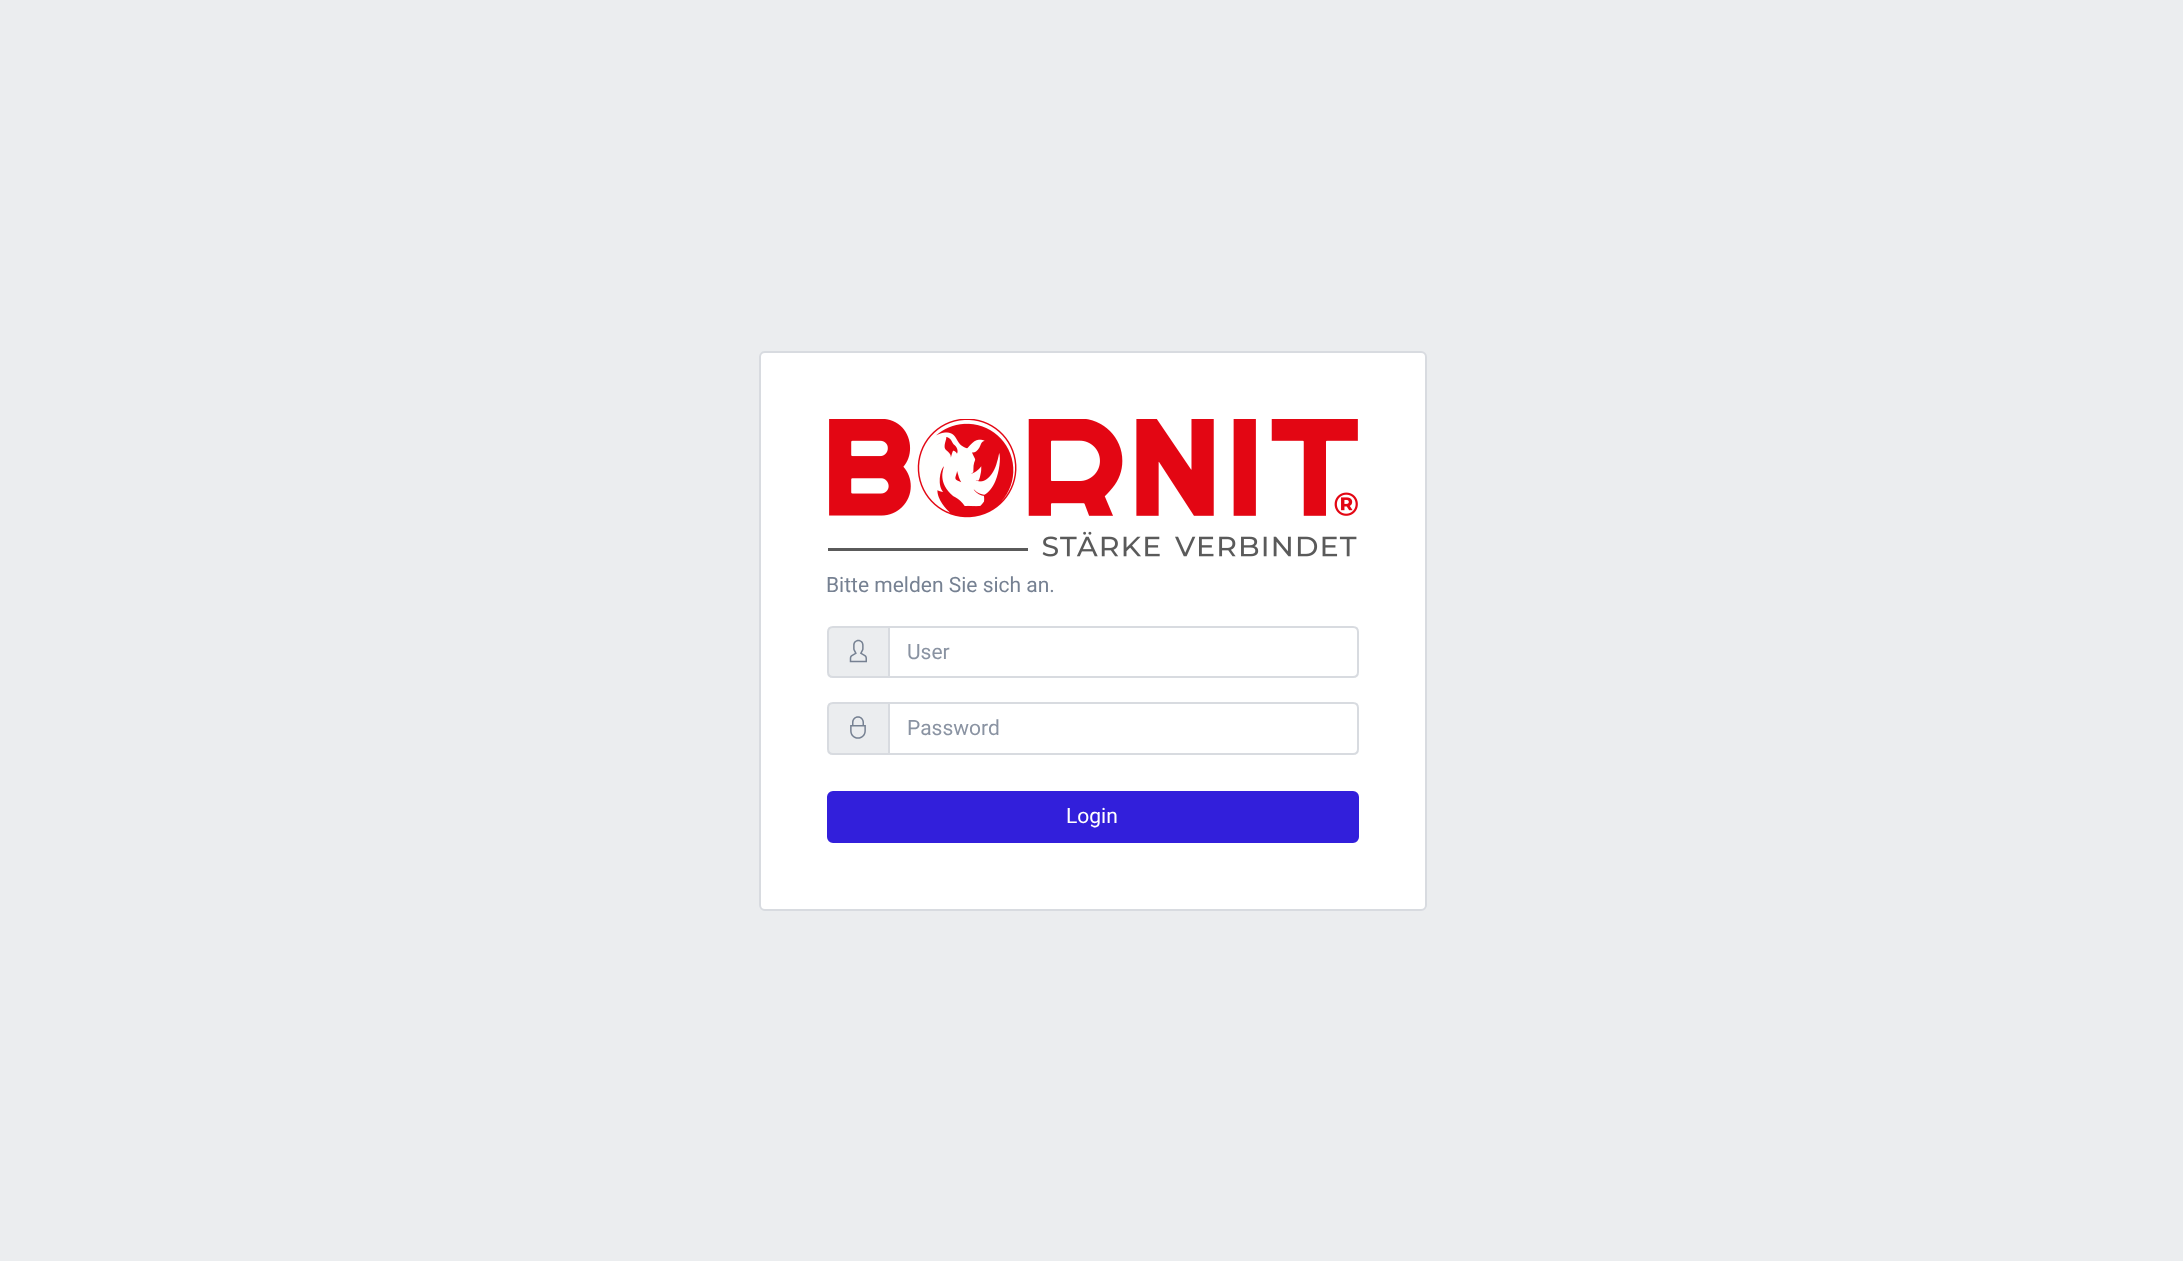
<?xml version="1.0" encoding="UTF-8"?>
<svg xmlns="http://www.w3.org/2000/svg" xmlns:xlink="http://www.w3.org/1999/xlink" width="2183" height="1261">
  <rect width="100%" height="100%" fill="#ebedef" />
  <rect x="760" y="352" width="666" height="558" rx="5" fill="#ffffff" stroke="#d8dbe0" stroke-width="2" />
  <image x="828" y="419" width="530" height="138" xlink:href="image1.png" />
  <path d="M 833 627 h 56 v 50 h -56 c -3 0 -5 -2 -5 -5 v -40 c 0 -3 2 -5 5 -5 z" fill="#ebedef" stroke="#d8dbe0" stroke-width="2" />
  <image x="849" y="639" width="18" height="24" xlink:href="image2.png" />
  <path d="M 889 627 h 464 c 3 0 5 2 5 5 v 40 c 0 3 -2 5 -5 5 h -464 z" fill="none" stroke="#d8dbe0" stroke-width="2" />
  <path d="M 833 703 h 56 v 51 h -56 c -3 0 -5 -2 -5 -5 v -41 c 0 -3 2 -5 5 -5 z" fill="#ebedef" stroke="#d8dbe0" stroke-width="2" />
  <image x="850" y="716" width="16" height="23" xlink:href="image3.png" />
  <path d="M 889 703 h 464 c 3 0 5 2 5 5 v 41 c 0 3 -2 5 -5 5 h -464 z" fill="none" stroke="#d8dbe0" stroke-width="2" />
  <rect x="828" y="792" width="530" height="50" rx="5" fill="#321fdb" stroke="#321fdb" stroke-width="2" />
  <text x="826" y="592" style="font-family: Roboto; font-size: 21px; fill: #768192">Bitte melden Sie sich an.</text>
  <text x="907" y="659" style="font-family: Roboto; font-size: 21px; fill: #8a93a2">User</text>
  <text x="907" y="735" style="font-family: Roboto; font-size: 21px; fill: #8a93a2">Password</text>
  <text x="1066" y="823" style="font-family: Roboto; font-size: 21px; fill: #ffffff">Login</text>
</svg>
